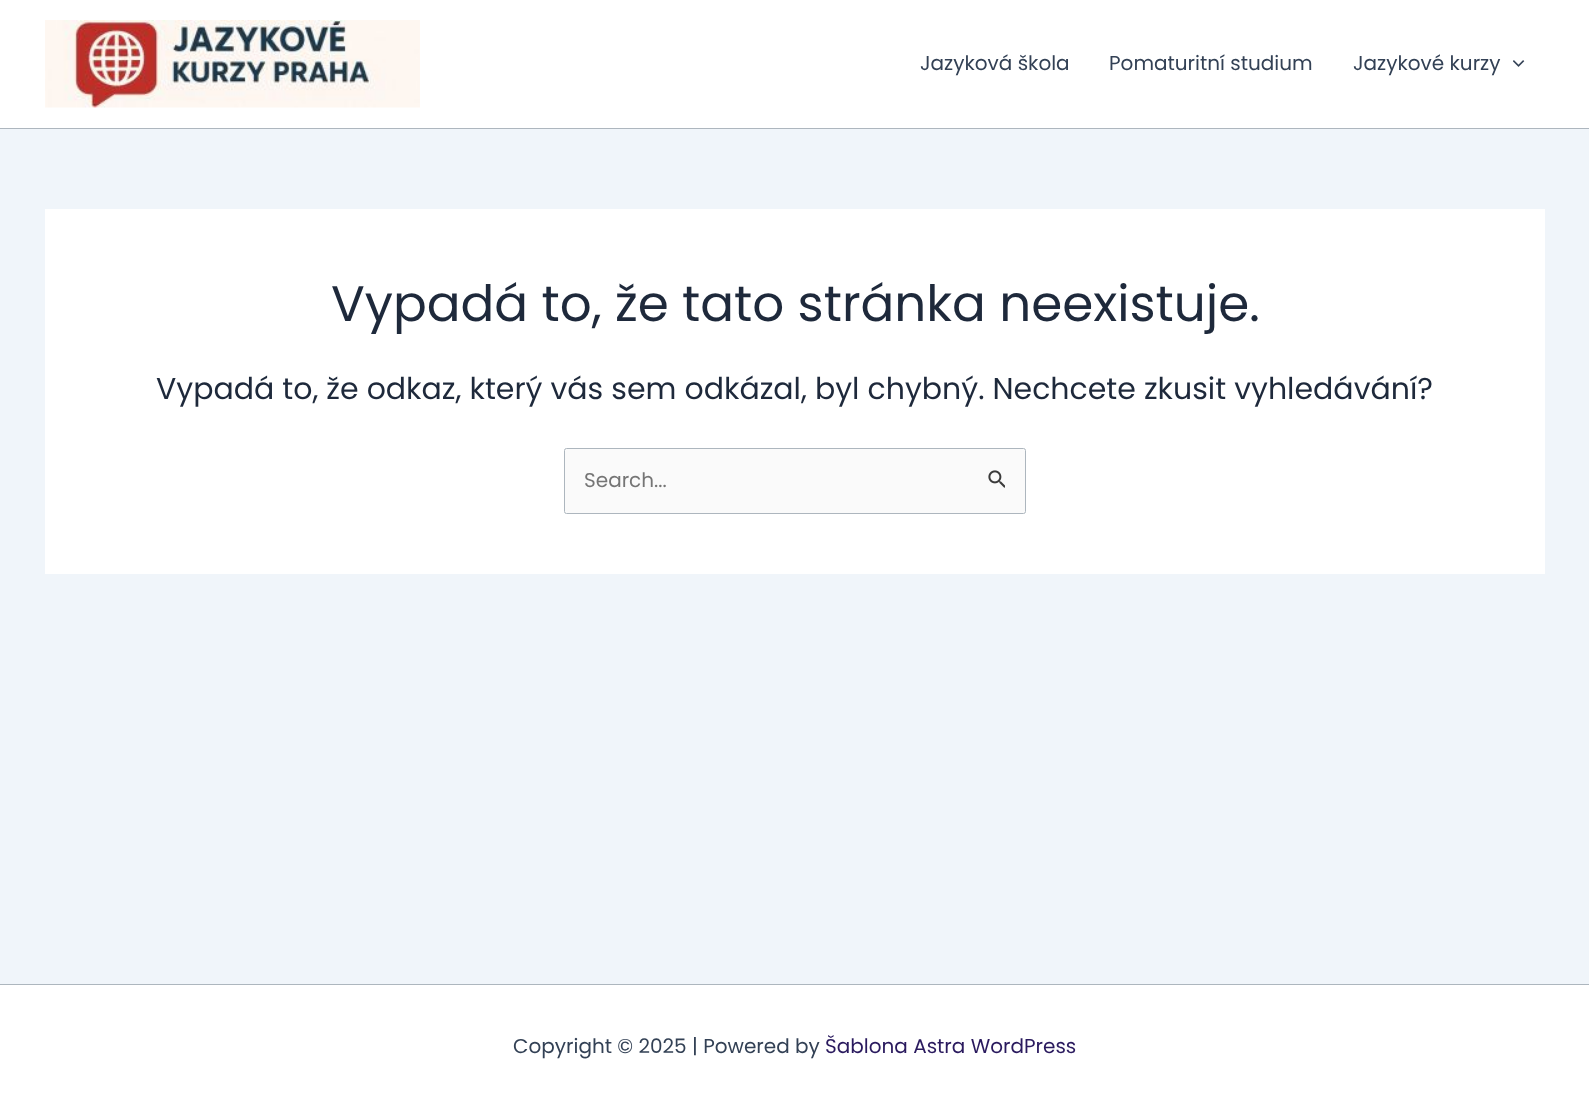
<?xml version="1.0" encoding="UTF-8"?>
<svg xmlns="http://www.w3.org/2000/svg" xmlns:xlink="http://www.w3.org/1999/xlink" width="1589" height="1109">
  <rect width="100%" height="100%" fill="#f0f5fa" />
  <rect width="1589" height="128" fill="#ffffff" />
  <rect y="128" width="1589" height="1" fill="#adb6be" />
  <image x="45" y="20" width="375" height="88" xlink:href="image1.png" />
  <image x="1513" y="60" width="12" height="7" xlink:href="image2.png" />
  <rect x="45" y="209" width="1500" height="365" fill="#ffffff" />
  <rect x="564.5" y="448.5" width="461" height="65" rx="2" fill="#fafafa" stroke="#adb6be" />
  <image x="988" y="470" width="17" height="18" xlink:href="image3.png" />
  <rect y="985" width="1589" height="124" fill="#ffffff" />
  <rect y="984" width="1589" height="1" fill="#adb6be" />
  <text x="920" y="70" style="font-family: Poppins; font-size: 20px; fill: #334155">Jazyková škola</text>
  <text x="1109" y="70" style="font-family: Poppins; font-size: 20px; fill: #334155">Pomaturitní studium</text>
  <text x="1353" y="70" style="font-family: Poppins; font-size: 20px; fill: #334155">Jazykové kurzy</text>
  <text x="331" y="321" style="font-family: Poppins; font-size: 50px; fill: #1e293b">Vypadá to, že tato stránka neexistuje.</text>
  <text x="156" y="399" style="font-family: Poppins; font-size: 30px; fill: #1e293b">Vypadá to, že odkaz, který vás sem odkázal, byl chybný. Nechcete zkusit vyhledávání?</text>
  <text x="584" y="487" style="font-family: Poppins; font-size: 20px; fill: #757575">Search...</text>
  <text x="513" y="1053" style="font-family: Poppins; font-size: 20px; fill: #334155">Copyright © 2025 | Powered by</text>
  <text x="825" y="1053" style="font-family: Poppins; font-size: 20px; fill: #2a1a5e">Šablona Astra WordPress</text>
</svg>
